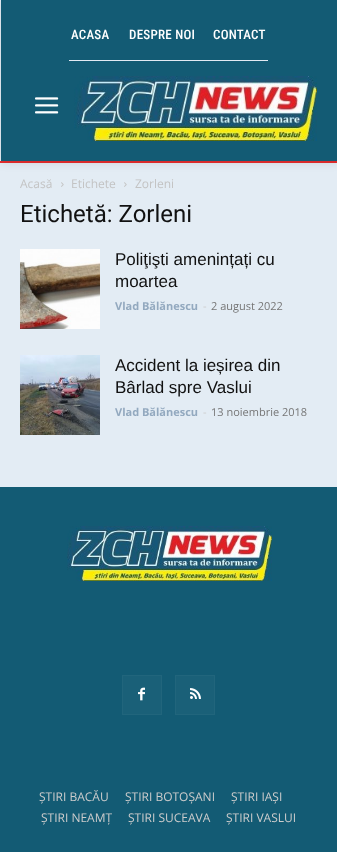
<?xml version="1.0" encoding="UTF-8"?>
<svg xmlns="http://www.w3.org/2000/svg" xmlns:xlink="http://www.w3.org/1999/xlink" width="337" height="852">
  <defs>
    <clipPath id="clip1"><path d="M 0 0 h 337 v 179 h -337 z m 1 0 h 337 v 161 h -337 z" clip-rule="evenodd" /></clipPath>
  </defs>
  <rect width="100%" height="100%" fill="#e3ecf4" />
  <rect y="161" width="337" height="2" fill="#e52e2e" />
  <rect x="1" width="336" height="161" fill="#135b74" />
  <image x="35" y="97" width="24" height="17" xlink:href="image1.png" />
  <image x="74" y="76" width="243" height="65" xlink:href="image2.png" />
  <g clip-path="url(#clip1)">
    <rect x="1" y="2" width="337" height="161" fill="#000000" fill-opacity="0.09" filter="blur(5px)" />
  </g>
  <rect x="69" y="60" width="199" height="1" fill="#e2eaf3" />
  <image x="61" y="182" width="3" height="5" xlink:href="image3.png" />
  <image x="124" y="182" width="3" height="5" xlink:href="image3.png" />
  <image x="20" y="249" width="80" height="80" xlink:href="image4.png" />
  <image x="20" y="355" width="80" height="80" xlink:href="image5.png" />
  <rect y="487" width="337" height="365" fill="#135b74" />
  <image x="67" y="526" width="205" height="55" xlink:href="image6.png" />
  <rect x="123" y="676" width="38" height="38" fill="#1a6078" />
  <image x="138" y="687" width="7" height="14" xlink:href="image7.png" />
  <rect x="122.5" y="675.5" width="39" height="39" fill="none" stroke="#21657c" />
  <rect x="176" y="676" width="38" height="38" fill="#1a6078" />
  <image x="190" y="688" width="11" height="11" xlink:href="image8.png" />
  <rect x="175.5" y="675.5" width="39" height="39" fill="none" stroke="#21657c" />
  <text x="71" y="39" style="font-family: Roboto Condensed; font-size: 13px; font-weight: 500; letter-spacing: 0.25px; fill: #ffffff">ACASA</text>
  <text x="129" y="39" style="font-family: Roboto Condensed; font-size: 13px; font-weight: 500; letter-spacing: 0.25px; fill: #ffffff">DESPRE NOI</text>
  <text x="213" y="39" style="font-family: Roboto Condensed; font-size: 13px; font-weight: 500; letter-spacing: 0.25px; fill: #ffffff">CONTACT</text>
  <text x="20" y="188" style="font-family: Open Sans; font-size: 12px; fill: #c3c3c3">Acasă</text>
  <text x="71" y="188" style="font-family: Open Sans; font-size: 12px; fill: #c3c3c3">Etichete</text>
  <text x="135" y="188" style="font-family: Open Sans; font-size: 12px; fill: #c3c3c3">Zorleni</text>
  <text x="20" y="222" style="font-family: Roboto; font-size: 24px; fill: #111111">Etichetă: Zorleni</text>
  <text x="115" y="265" style="font-family: Liberation Sans; font-size: 17px; fill: #111111">Poliţişti amenințați cu</text>
  <text x="115" y="287" style="font-family: Liberation Sans; font-size: 17px; fill: #111111">moartea</text>
  <text x="115" y="310" style="font-family: Open Sans; font-size: 11px; font-weight: bold; fill: #93a9bf">Vlad Bălănescu</text>
  <text x="203" y="310" style="font-family: Open Sans; font-size: 11px; fill: #cccccc">-</text>
  <text x="211" y="310" style="font-family: Open Sans; font-size: 11px; fill: #767676">2 august 2022</text>
  <text x="115" y="371" style="font-family: Liberation Sans; font-size: 17px; fill: #111111">Accident la ieșirea din</text>
  <text x="115" y="393" style="font-family: Liberation Sans; font-size: 17px; fill: #111111">Bârlad spre Vaslui</text>
  <text x="115" y="416" style="font-family: Open Sans; font-size: 11px; font-weight: bold; fill: #93a9bf">Vlad Bălănescu</text>
  <text x="203" y="416" style="font-family: Open Sans; font-size: 11px; fill: #cccccc">-</text>
  <text x="211" y="416" style="font-family: Open Sans; font-size: 11px; fill: #767676">13 noiembrie 2018</text>
  <text x="39" y="801" style="font-family: Open Sans; font-size: 12px; fill: #cccccc">ȘTIRI BACĂU</text>
  <text x="125" y="801" style="font-family: Open Sans; font-size: 12px; fill: #cccccc">ȘTIRI BOTOȘANI</text>
  <text x="231" y="801" style="font-family: Open Sans; font-size: 12px; fill: #cccccc">ȘTIRI IAȘI</text>
  <text x="41" y="822" style="font-family: Open Sans; font-size: 12px; fill: #cccccc">ȘTIRI NEAMȚ</text>
  <text x="128" y="822" style="font-family: Open Sans; font-size: 12px; fill: #cccccc">ȘTIRI SUCEAVA</text>
  <text x="226" y="822" style="font-family: Open Sans; font-size: 12px; fill: #cccccc">ȘTIRI VASLUI</text>
</svg>
